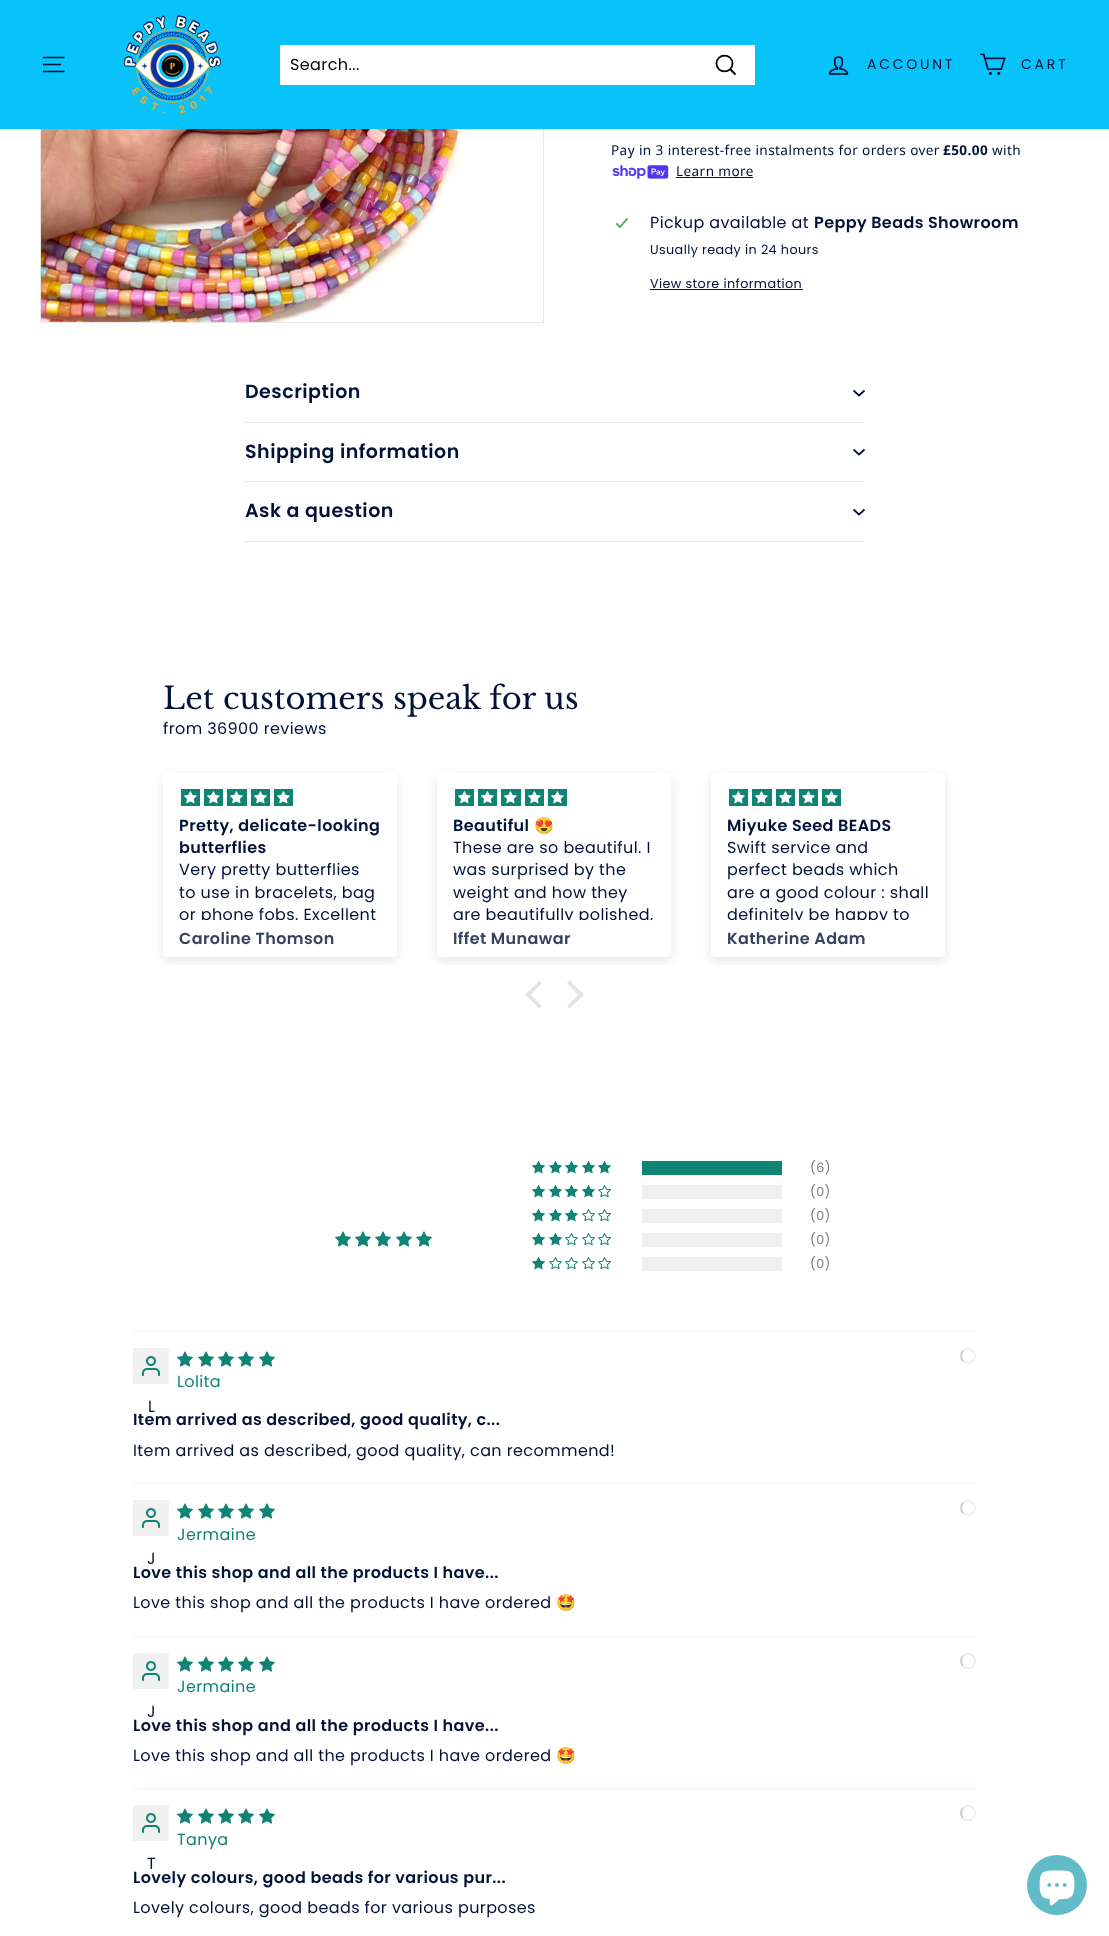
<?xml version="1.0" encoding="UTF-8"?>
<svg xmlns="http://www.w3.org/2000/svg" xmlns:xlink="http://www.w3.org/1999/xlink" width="1109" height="1936">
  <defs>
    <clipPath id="clip1"><rect x="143" y="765" width="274" height="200" /></clipPath>
    <clipPath id="clip2"><path d="M 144 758 h 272 v 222 h -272 z m 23 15 h 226 c 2 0 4 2 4 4 v 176 c 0 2 -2 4 -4 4 h -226 c -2 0 -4 -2 -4 -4 v -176 c 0 -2 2 -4 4 -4 z" clip-rule="evenodd" /></clipPath>
    <clipPath id="clip3"><rect x="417" y="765" width="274" height="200" /></clipPath>
    <clipPath id="clip4"><path d="M 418 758 h 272 v 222 h -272 z m 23 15 h 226 c 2 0 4 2 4 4 v 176 c 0 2 -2 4 -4 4 h -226 c -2 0 -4 -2 -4 -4 v -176 c 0 -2 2 -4 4 -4 z" clip-rule="evenodd" /></clipPath>
    <clipPath id="clip5"><rect x="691" y="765" width="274" height="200" /></clipPath>
    <clipPath id="clip6"><path d="M 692 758 h 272 v 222 h -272 z m 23 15 h 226 c 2 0 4 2 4 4 v 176 c 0 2 -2 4 -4 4 h -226 c -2 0 -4 -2 -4 -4 v -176 c 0 -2 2 -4 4 -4 z" clip-rule="evenodd" /></clipPath>
    <clipPath id="clip7"><rect x="179" y="789" width="202" height="131" /></clipPath>
    <clipPath id="clip8"><rect x="453" y="789" width="202" height="131" /></clipPath>
    <clipPath id="clip9"><rect x="727" y="789" width="202" height="131" /></clipPath>
  </defs>
  <rect width="100%" height="100%" fill="#ffffff" />
  <rect x="40.5" y="-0.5" width="503" height="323" fill="none" stroke="#e8e8e1" />
  <rect width="1109" height="129" fill="#08c3f9" />
  <path d="M 43 57.5 h 21.5 m -21.5 7 h 18 m -18 7 h 21.5" fill="none" stroke="#011137" stroke-width="1.7" />
  <image x="124" y="15" width="97" height="99" xlink:href="image1.png" />
  <rect x="280" y="45" width="475" height="40" fill="#ffffff" />
  <path d="M 732.5 63.5 c 0 10.5 -16 10.5 -16 0 c 0 -10.5 16 -10.5 16 0 z m 3 11 l -5 -5" fill="none" stroke="#000000" stroke-width="1.8" />
  <image x="828" y="56" width="21" height="19" xlink:href="image2.png" />
  <image x="980" y="53" width="26" height="22" xlink:href="image3.png" />
  <image x="41" y="129" width="450" height="193" xlink:href="image4.png" />
  <image x="612" y="165" width="57" height="14" xlink:href="image5.png" />
  <rect x="676" y="177" width="77" height="1" fill="#011137" />
  <image x="616" y="218" width="12" height="10" xlink:href="image6.png" />
  <rect x="650" y="289" width="153" height="1" fill="#011137" />
  <rect x="245" y="422" width="620" height="1" fill="#e8e8e1" />
  <path d="M 853.5 390.5 l 5.5 5 l 5.5 -5" fill="none" stroke="#011137" stroke-width="1.7" />
  <rect x="245" y="481" width="620" height="1" fill="#e8e8e1" />
  <path d="M 853.5 449.5 l 5.5 5 l 5.5 -5" fill="none" stroke="#011137" stroke-width="1.7" />
  <rect x="245" y="541" width="620" height="1" fill="#e8e8e1" />
  <path d="M 853.5 509.5 l 5.5 5 l 5.5 -5" fill="none" stroke="#011137" stroke-width="1.7" />
  <g clip-path="url(#clip1)">
    <g clip-path="url(#clip2)">
      <rect x="163" y="777" width="234" height="184" rx="4" fill="#000000" fill-opacity="0.1" filter="blur(6px)" />
    </g>
  </g>
  <rect x="181" y="789" width="19" height="17" fill="#108474" />
  <rect x="204" y="789" width="19" height="17" fill="#108474" />
  <rect x="227" y="789" width="20" height="17" fill="#108474" />
  <rect x="251" y="789" width="19" height="17" fill="#108474" />
  <rect x="274" y="789" width="19" height="17" fill="#108474" />
  <image x="184" y="791" width="13" height="13" xlink:href="image7.png" />
  <image x="207" y="791" width="13" height="13" xlink:href="image7.png" />
  <image x="230" y="791" width="13" height="13" xlink:href="image7.png" />
  <image x="254" y="791" width="13" height="13" xlink:href="image7.png" />
  <image x="277" y="791" width="13" height="13" xlink:href="image7.png" />
  <g clip-path="url(#clip3)">
    <g clip-path="url(#clip4)">
      <rect x="437" y="777" width="234" height="184" rx="4" fill="#000000" fill-opacity="0.1" filter="blur(6px)" />
    </g>
  </g>
  <rect x="455" y="789" width="19" height="17" fill="#108474" />
  <rect x="478" y="789" width="19" height="17" fill="#108474" />
  <rect x="501" y="789" width="20" height="17" fill="#108474" />
  <rect x="525" y="789" width="19" height="17" fill="#108474" />
  <rect x="548" y="789" width="19" height="17" fill="#108474" />
  <image x="458" y="791" width="13" height="13" xlink:href="image7.png" />
  <image x="481" y="791" width="13" height="13" xlink:href="image7.png" />
  <image x="504" y="791" width="13" height="13" xlink:href="image7.png" />
  <image x="528" y="791" width="13" height="13" xlink:href="image7.png" />
  <image x="551" y="791" width="13" height="13" xlink:href="image7.png" />
  <g clip-path="url(#clip5)">
    <g clip-path="url(#clip6)">
      <rect x="711" y="777" width="234" height="184" rx="4" fill="#000000" fill-opacity="0.1" filter="blur(6px)" />
    </g>
  </g>
  <rect x="729" y="789" width="19" height="17" fill="#108474" />
  <rect x="752" y="789" width="20" height="17" fill="#108474" />
  <rect x="776" y="789" width="19" height="17" fill="#108474" />
  <rect x="799" y="789" width="19" height="17" fill="#108474" />
  <rect x="822" y="789" width="19" height="17" fill="#108474" />
  <image x="732" y="791" width="13" height="13" xlink:href="image7.png" />
  <image x="755" y="791" width="13" height="13" xlink:href="image7.png" />
  <image x="779" y="791" width="13" height="13" xlink:href="image7.png" />
  <image x="802" y="791" width="13" height="13" xlink:href="image7.png" />
  <image x="825" y="791" width="13" height="13" xlink:href="image7.png" />
  <path d="M 525 994.5 l 14.5 -14 l 2.5 3 l -14 14 z" fill="#e4e4e4" />
  <path d="M 525 994.5 l 3 -2.5 l 14 14 l -2.5 3 z m 42 -11 l 2.5 -3 l 14.5 14 l -3 3 z" fill="#e4e4e4" />
  <path d="M 567 1006 l 14 -14 l 3 2.5 l -14.5 14.5 z" fill="#e4e4e4" />
  <image x="335" y="1231" width="16" height="16" xlink:href="image8.png" />
  <image x="355" y="1231" width="16" height="16" xlink:href="image8.png" />
  <image x="375" y="1231" width="16" height="16" xlink:href="image8.png" />
  <image x="396" y="1231" width="16" height="16" xlink:href="image8.png" />
  <image x="416" y="1231" width="16" height="16" xlink:href="image8.png" />
  <image x="532" y="1161" width="13" height="13" xlink:href="image9.png" />
  <image x="549" y="1161" width="13" height="13" xlink:href="image9.png" />
  <image x="565" y="1161" width="13" height="13" xlink:href="image9.png" />
  <image x="582" y="1161" width="13" height="13" xlink:href="image9.png" />
  <image x="598" y="1161" width="13" height="13" xlink:href="image9.png" />
  <rect x="642" y="1161" width="140" height="14" fill="#108474" />
  <image x="532" y="1185" width="13" height="13" xlink:href="image9.png" />
  <image x="549" y="1185" width="13" height="13" xlink:href="image9.png" />
  <image x="565" y="1185" width="13" height="13" xlink:href="image9.png" />
  <image x="582" y="1185" width="13" height="13" xlink:href="image9.png" />
  <image x="598" y="1185" width="13" height="13" xlink:href="image10.png" />
  <rect x="642" y="1185" width="140" height="14" fill="#f0f0f0" />
  <image x="532" y="1209" width="13" height="13" xlink:href="image9.png" />
  <image x="549" y="1209" width="13" height="13" xlink:href="image9.png" />
  <image x="565" y="1209" width="13" height="13" xlink:href="image9.png" />
  <image x="582" y="1209" width="13" height="13" xlink:href="image10.png" />
  <image x="598" y="1209" width="13" height="13" xlink:href="image10.png" />
  <rect x="642" y="1209" width="140" height="14" fill="#f0f0f0" />
  <image x="532" y="1233" width="13" height="13" xlink:href="image9.png" />
  <image x="549" y="1233" width="13" height="13" xlink:href="image9.png" />
  <image x="565" y="1233" width="13" height="13" xlink:href="image10.png" />
  <image x="582" y="1233" width="13" height="13" xlink:href="image10.png" />
  <image x="598" y="1233" width="13" height="13" xlink:href="image10.png" />
  <rect x="642" y="1233" width="140" height="14" fill="#f0f0f0" />
  <image x="532" y="1257" width="13" height="13" xlink:href="image9.png" />
  <image x="549" y="1257" width="13" height="13" xlink:href="image10.png" />
  <image x="565" y="1257" width="13" height="13" xlink:href="image10.png" />
  <image x="582" y="1257" width="13" height="13" xlink:href="image10.png" />
  <image x="598" y="1257" width="13" height="13" xlink:href="image10.png" />
  <rect x="642" y="1257" width="140" height="14" fill="#f0f0f0" />
  <rect x="133" y="1331" width="843" height="1" fill="#e7f3f1" />
  <image x="177" y="1351" width="16" height="16" xlink:href="image8.png" />
  <image x="198" y="1351" width="16" height="16" xlink:href="image8.png" />
  <image x="218" y="1351" width="16" height="16" xlink:href="image8.png" />
  <image x="238" y="1351" width="16" height="16" xlink:href="image8.png" />
  <image x="259" y="1351" width="16" height="16" xlink:href="image8.png" />
  <path d="M 963 1351 c 1.5 -1.5 4 -2.5 6.5 -2 c 8 2 7 14 -1.5 14 c -2 0 -3.5 -0.5 -5 -2" fill="none" stroke="#eeeeee" stroke-width="2" />
  <path d="M 963 1361 c -2.5 -2.5 -2.5 -7.5 0 -10" fill="none" stroke="#cccccc" stroke-width="2" />
  <rect x="133" y="1348" width="36" height="36" fill="#f0f0f0" />
  <image x="142" y="1356" width="18" height="20" xlink:href="image11.png" />
  <rect x="133" y="1483" width="843" height="1" fill="#e7f3f1" />
  <image x="177" y="1503" width="16" height="16" xlink:href="image8.png" />
  <image x="198" y="1503" width="16" height="16" xlink:href="image8.png" />
  <image x="218" y="1503" width="16" height="16" xlink:href="image8.png" />
  <image x="238" y="1503" width="16" height="16" xlink:href="image8.png" />
  <image x="259" y="1503" width="16" height="16" xlink:href="image8.png" />
  <path d="M 963 1503 c 1.5 -1.5 4 -2.5 6.5 -2 c 8 2 7 14 -1.5 14 c -2 0 -3.5 -0.5 -5 -2" fill="none" stroke="#eeeeee" stroke-width="2" />
  <path d="M 963 1513 c -2.5 -2.5 -2.5 -7.5 0 -10" fill="none" stroke="#cccccc" stroke-width="2" />
  <rect x="133" y="1500" width="36" height="36" fill="#f0f0f0" />
  <image x="142" y="1508" width="18" height="20" xlink:href="image11.png" />
  <rect x="133" y="1636" width="843" height="1" fill="#e7f3f1" />
  <image x="177" y="1656" width="16" height="16" xlink:href="image8.png" />
  <image x="198" y="1656" width="16" height="16" xlink:href="image8.png" />
  <image x="218" y="1656" width="16" height="16" xlink:href="image8.png" />
  <image x="238" y="1656" width="16" height="16" xlink:href="image8.png" />
  <image x="259" y="1656" width="16" height="16" xlink:href="image8.png" />
  <path d="M 963 1656 c 1.5 -1.5 4 -2.5 6.5 -2 c 8 2 7 14 -1.5 14 c -2 0 -3.5 -0.5 -5 -2" fill="none" stroke="#eeeeee" stroke-width="2" />
  <path d="M 963 1666 c -2.5 -2.5 -2.5 -7.5 0 -10" fill="none" stroke="#cccccc" stroke-width="2" />
  <rect x="133" y="1653" width="36" height="36" fill="#f0f0f0" />
  <image x="142" y="1661" width="18" height="20" xlink:href="image11.png" />
  <rect x="133" y="1788" width="843" height="1" fill="#e7f3f1" />
  <image x="177" y="1808" width="16" height="16" xlink:href="image8.png" />
  <image x="198" y="1808" width="16" height="16" xlink:href="image8.png" />
  <image x="218" y="1808" width="16" height="16" xlink:href="image8.png" />
  <image x="238" y="1808" width="16" height="16" xlink:href="image8.png" />
  <image x="259" y="1808" width="16" height="16" xlink:href="image8.png" />
  <path d="M 963 1808 c 1.5 -1.5 3 -2 5 -2 c 8.5 0 9.5 12 1.5 14 c -2.5 0.5 -5 -0.5 -6.5 -2" fill="none" stroke="#eeeeee" stroke-width="2" />
  <path d="M 963 1818 c -2.5 -2.5 -2.5 -7.5 0 -10" fill="none" stroke="#cccccc" stroke-width="2" />
  <rect x="133" y="1805" width="36" height="36" fill="#f0f0f0" />
  <image x="142" y="1813" width="18" height="20" xlink:href="image11.png" />
  <circle cx="1057" cy="1885" r="30" fill="#62bcc7" />
  <image x="1039" y="1870" width="36" height="36" xlink:href="image12.png" />
  <text x="290" y="70" style="font-family: Poppins; font-size: 16px; letter-spacing: 0.4px; fill: #000000">Search...</text>
  <text x="867" y="69" style="font-family: Poppins; font-size: 14px; letter-spacing: 2.75px; fill: #011137">ACCOUNT</text>
  <text x="1021" y="69" style="font-family: Poppins; font-size: 14px; letter-spacing: 2.75px; fill: #011137">CART</text>
  <text x="611" y="155" style="font-family: Noto Sans; font-size: 13.6px; letter-spacing: 0.4px; fill: #011137">Pay in 3 interest-free instalments for orders over</text>
  <text x="943" y="155" style="font-family: Noto Sans; font-size: 13.6px; font-weight: bold; letter-spacing: 0.4px; fill: #011137">£50.00</text>
  <text x="992" y="155" style="font-family: Noto Sans; font-size: 13.6px; letter-spacing: 0.4px; fill: #011137">with</text>
  <text x="676" y="176" style="font-family: Noto Sans; font-size: 13.6px; letter-spacing: 0.4px; fill: #011137">Learn more</text>
  <text x="650" y="228" style="font-family: Poppins; font-size: 16px; letter-spacing: 0.4px; fill: #011137">Pickup available at</text>
  <text x="814" y="228" style="font-family: Poppins; font-size: 16px; font-weight: 600; letter-spacing: 0.4px; fill: #011137">Peppy Beads Showroom</text>
  <text x="650" y="254" style="font-family: Poppins; font-size: 12.75px; letter-spacing: 0.4px; fill: #011137">Usually ready in 24 hours</text>
  <text x="650" y="288" style="font-family: Poppins; font-size: 12.75px; letter-spacing: 0.4px; fill: #011137">View store information</text>
  <text x="245" y="398" style="font-family: Poppins; font-size: 19px; font-weight: 600; letter-spacing: 0.5px; fill: #011137">Description</text>
  <text x="245" y="458" style="font-family: Poppins; font-size: 19px; font-weight: 600; letter-spacing: 0.5px; fill: #011137">Shipping information</text>
  <text x="245" y="517" style="font-family: Poppins; font-size: 19px; font-weight: 600; letter-spacing: 0.5px; fill: #011137">Ask a question</text>
  <text x="163" y="709" style="font-family: Libre Baskerville; font-size: 30.6px; fill: #011137">Let customers speak for us</text>
  <text x="163" y="734" style="font-family: Poppins; font-size: 16px; letter-spacing: 0.4px; fill: #011137">from 36900 reviews</text>
  <text x="179" y="831" style="font-family: Poppins; font-size: 16px; font-weight: 600; letter-spacing: 0.4px; fill: #011137">Pretty, delicate-looking</text>
  <text x="179" y="853" style="font-family: Poppins; font-size: 16px; font-weight: 600; letter-spacing: 0.4px; fill: #011137">butterflies</text>
  <text x="179" y="875" style="font-family: Poppins; font-size: 16px; letter-spacing: 0.4px; fill: #011137">Very pretty butterflies</text>
  <text x="179" y="898" style="font-family: Poppins; font-size: 16px; letter-spacing: 0.4px; fill: #011137">to use in bracelets, bag</text>
  <g clip-path="url(#clip7)">
    <text x="179" y="920" style="font-family: Poppins; font-size: 16px; letter-spacing: 0.4px; fill: #011137">or phone fobs. Excellent</text>
  </g>
  <text x="179" y="944" style="font-family: Poppins; font-size: 16px; font-weight: 600; letter-spacing: 0.4px; fill: #34415f">Caroline Thomson</text>
  <text x="453" y="831" style="font-family: Poppins; font-size: 16px; font-weight: 600; letter-spacing: 0.4px; fill: #011137">Beautiful</text>
  <text x="534" y="831" style="font-family: Noto Color Emoji; font-size: 16px; font-weight: bold; letter-spacing: 0.4px; fill: #011137">😍</text>
  <text x="453" y="853" style="font-family: Poppins; font-size: 16px; letter-spacing: 0.4px; fill: #011137">These are so beautiful. I</text>
  <text x="453" y="875" style="font-family: Poppins; font-size: 16px; letter-spacing: 0.4px; fill: #011137">was surprised by the</text>
  <text x="453" y="898" style="font-family: Poppins; font-size: 16px; letter-spacing: 0.4px; fill: #011137">weight and how they</text>
  <g clip-path="url(#clip8)">
    <text x="453" y="920" style="font-family: Poppins; font-size: 16px; letter-spacing: 0.4px; fill: #011137">are beautifully polished,</text>
  </g>
  <text x="453" y="944" style="font-family: Poppins; font-size: 16px; font-weight: 600; letter-spacing: 0.4px; fill: #34415f">Iffet Munawar</text>
  <text x="727" y="831" style="font-family: Poppins; font-size: 16px; font-weight: 600; letter-spacing: 0.4px; fill: #011137">Miyuke Seed BEADS</text>
  <text x="727" y="853" style="font-family: Poppins; font-size: 16px; letter-spacing: 0.4px; fill: #011137">Swift service and</text>
  <text x="727" y="875" style="font-family: Poppins; font-size: 16px; letter-spacing: 0.4px; fill: #011137">perfect beads which</text>
  <text x="727" y="898" style="font-family: Poppins; font-size: 16px; letter-spacing: 0.4px; fill: #011137">are a good colour : shall</text>
  <g clip-path="url(#clip9)">
    <text x="727" y="920" style="font-family: Poppins; font-size: 16px; letter-spacing: 0.4px; fill: #011137">definitely be happy to</text>
  </g>
  <text x="727" y="944" style="font-family: Poppins; font-size: 16px; font-weight: 600; letter-spacing: 0.4px; fill: #34415f">Katherine Adam</text>
  <text x="810" y="1172" style="font-family: Poppins; font-size: 12.75px; letter-spacing: 0.4px; fill: #7b7b7b">(6)</text>
  <text x="810" y="1196" style="font-family: Poppins; font-size: 12.75px; letter-spacing: 0.4px; fill: #7b7b7b">(0)</text>
  <text x="810" y="1220" style="font-family: Poppins; font-size: 12.75px; letter-spacing: 0.4px; fill: #7b7b7b">(0)</text>
  <text x="810" y="1244" style="font-family: Poppins; font-size: 12.75px; letter-spacing: 0.4px; fill: #7b7b7b">(0)</text>
  <text x="810" y="1268" style="font-family: Poppins; font-size: 12.75px; letter-spacing: 0.4px; fill: #7b7b7b">(0)</text>
  <text x="177" y="1387" style="font-family: Poppins; font-size: 16px; letter-spacing: 0.4px; fill: #108474">Lolita</text>
  <text x="148" y="1412" style="font-family: Poppins; font-size: 16px; letter-spacing: 0.4px; fill: #011137">L</text>
  <text x="133" y="1425" style="font-family: Poppins; font-size: 16px; font-weight: 600; letter-spacing: 0.4px; fill: #011137">Item arrived as described, good quality, c...</text>
  <text x="133" y="1456" style="font-family: Poppins; font-size: 16px; letter-spacing: 0.4px; fill: #011137">Item arrived as described, good quality, can recommend!</text>
  <text x="177" y="1540" style="font-family: Poppins; font-size: 16px; letter-spacing: 0.4px; fill: #108474">Jermaine</text>
  <text x="147" y="1564" style="font-family: Poppins; font-size: 16px; letter-spacing: 0.4px; fill: #011137">J</text>
  <text x="133" y="1578" style="font-family: Poppins; font-size: 16px; font-weight: 600; letter-spacing: 0.4px; fill: #011137">Love this shop and all the products I have...</text>
  <text x="133" y="1608" style="font-family: Poppins; font-size: 16px; letter-spacing: 0.4px; fill: #011137">Love this shop and all the products I have ordered</text>
  <text x="556" y="1608" style="font-family: Noto Color Emoji; font-size: 16px; letter-spacing: 0.4px; fill: #011137">🤩</text>
  <text x="177" y="1692" style="font-family: Poppins; font-size: 16px; letter-spacing: 0.4px; fill: #108474">Jermaine</text>
  <text x="147" y="1717" style="font-family: Poppins; font-size: 16px; letter-spacing: 0.4px; fill: #011137">J</text>
  <text x="133" y="1731" style="font-family: Poppins; font-size: 16px; font-weight: 600; letter-spacing: 0.4px; fill: #011137">Love this shop and all the products I have...</text>
  <text x="133" y="1761" style="font-family: Poppins; font-size: 16px; letter-spacing: 0.4px; fill: #011137">Love this shop and all the products I have ordered</text>
  <text x="556" y="1761" style="font-family: Noto Color Emoji; font-size: 16px; letter-spacing: 0.4px; fill: #011137">🤩</text>
  <text x="177" y="1845" style="font-family: Poppins; font-size: 16px; letter-spacing: 0.4px; fill: #108474">Tanya</text>
  <text x="147" y="1869" style="font-family: Poppins; font-size: 16px; letter-spacing: 0.4px; fill: #011137">T</text>
  <text x="133" y="1883" style="font-family: Poppins; font-size: 16px; font-weight: 600; letter-spacing: 0.4px; fill: #011137">Lovely colours, good beads for various pur...</text>
  <text x="133" y="1913" style="font-family: Poppins; font-size: 16px; letter-spacing: 0.4px; fill: #011137">Lovely colours, good beads for various purposes</text>
</svg>
